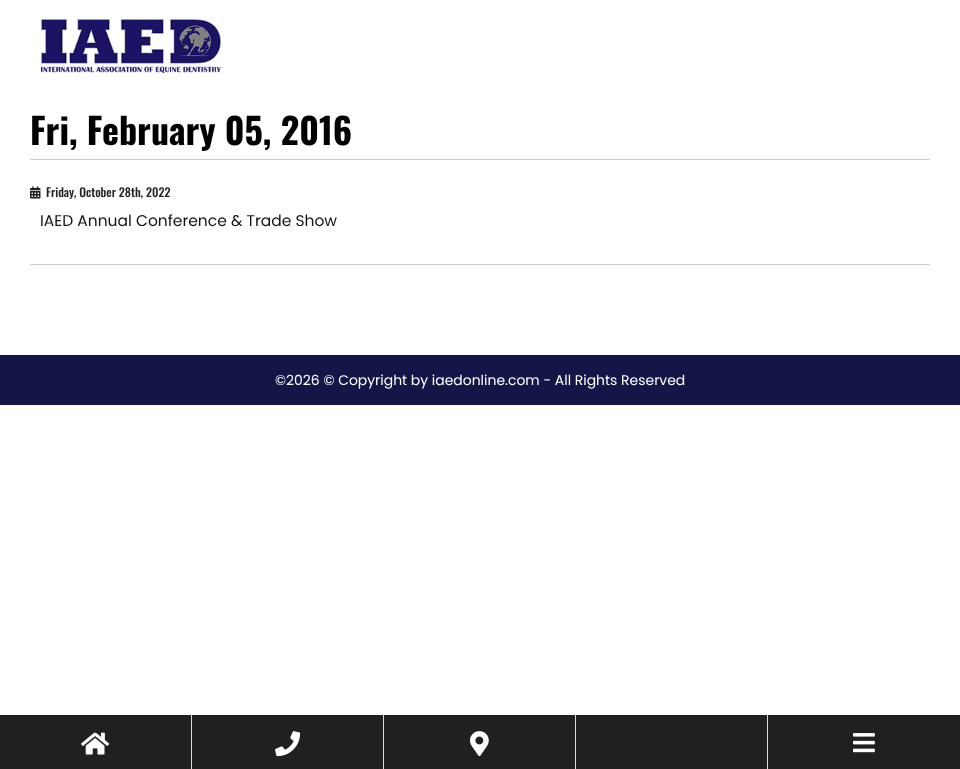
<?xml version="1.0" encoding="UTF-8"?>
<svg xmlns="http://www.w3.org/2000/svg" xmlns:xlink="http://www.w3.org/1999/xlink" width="960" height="769">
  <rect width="100%" height="100%" fill="#ffffff" />
  <image x="41" y="19" width="180" height="54" xlink:href="image1.png" />
  <rect y="715" width="960" height="54" fill="#221f1f" />
  <rect x="191" y="715" width="1" height="54" fill="#dddddd" />
  <image x="81" y="732" width="29" height="23" xlink:href="image2.png" />
  <rect x="383" y="715" width="1" height="54" fill="#dddddd" />
  <image x="275" y="731" width="26" height="26" xlink:href="image3.png" />
  <rect x="575" y="715" width="1" height="54" fill="#dddddd" />
  <image x="470" y="731" width="19" height="26" xlink:href="image4.png" />
  <rect x="767" y="715" width="1" height="54" fill="#dddddd" />
  <image x="853" y="733" width="22" height="20" xlink:href="image5.png" />
  <rect x="30" y="264" width="900" height="1" fill="#cccccc" />
  <rect x="30" y="159" width="900" height="1" fill="#cccccc" />
  <image x="30" y="186" width="11" height="13" xlink:href="image6.png" />
  <rect y="355" width="960" height="50" fill="#141648" />
  <text x="30" y="145" style="font-family: Oswald; font-size: 36px; font-weight: bold; fill: #000000">Fri, February 05, 2016</text>
  <text x="46" y="197" style="font-family: Oswald; font-size: 12px; font-weight: 500; fill: #231f20">Friday, October 28th, 2022</text>
  <text x="40" y="226" style="font-family: Poppins; font-size: 15.5px; fill: #141415">IAED Annual Conference &amp; Trade Show</text>
  <text x="275" y="385" style="font-family: Poppins; font-size: 13.95px; fill: #ffffff">©2026 © Copyright by iaedonline.com - All Rights Reserved</text>
</svg>
